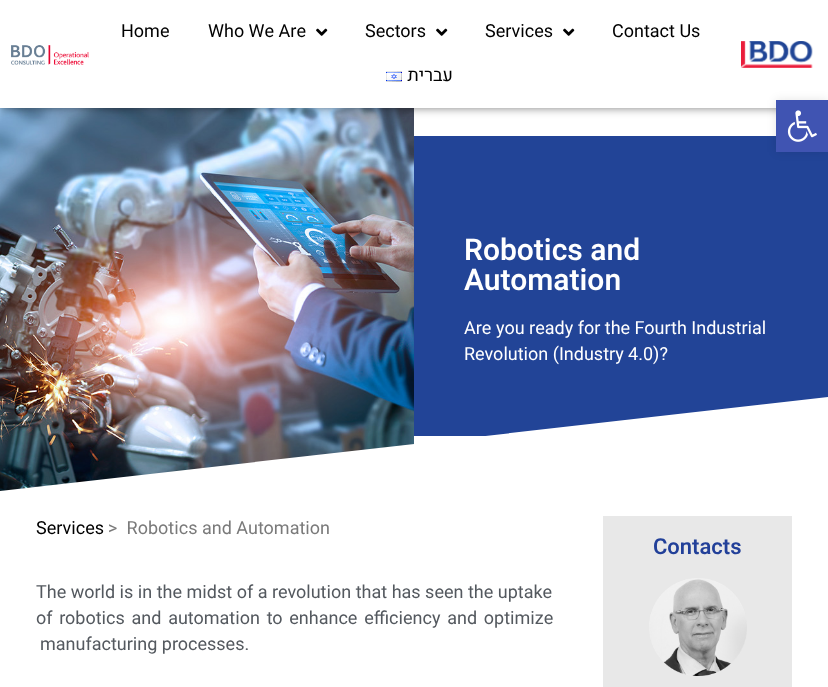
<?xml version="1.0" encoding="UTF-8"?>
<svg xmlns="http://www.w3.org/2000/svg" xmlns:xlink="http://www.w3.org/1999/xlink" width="828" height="687">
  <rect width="100%" height="100%" fill="#ffffff" />
  <image x="0" y="108" width="414" height="383" xlink:href="image5.png" />
  <rect width="828" height="108" fill="#000000" fill-opacity="0.5" filter="blur(5px)" />
  <rect width="828" height="108" fill="#ffffff" />
  <image x="11" y="45" width="78" height="20" xlink:href="image1.png" />
  <image x="316" y="28" width="12" height="8" xlink:href="image2.png" />
  <image x="436" y="28" width="12" height="8" xlink:href="image2.png" />
  <image x="563" y="28" width="12" height="8" xlink:href="image2.png" />
  <image x="386" y="71" width="16" height="11" xlink:href="image3.png" />
  <image x="741" y="41" width="72" height="27" xlink:href="image4.png" />
  <rect x="414" y="136" width="414" height="300" fill="#224497" />
  <path d="M -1 491 v 6 h 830 v -100 z" fill="#ffffff" />
  <rect x="603" y="516" width="189" height="171" fill="#e8e8e8" />
  <image x="649" y="578" width="98" height="98" xlink:href="image6.png" />
  <rect x="776" y="100" width="52" height="52" fill="#000000" fill-opacity="0.1" filter="blur(5px)" />
  <rect x="776" y="100" width="52" height="52" fill="#4054b2" />
  <image x="787" y="110" width="30" height="32" xlink:href="image7.png" />
  <text x="121" y="37" style="font-family: Heebo; font-size: 18px; fill: #000000">Home</text>
  <text x="208" y="37" style="font-family: Heebo; font-size: 18px; fill: #000000">Who We Are</text>
  <text x="365" y="37" style="font-family: Heebo; font-size: 18px; fill: #000000">Sectors</text>
  <text x="485" y="37" style="font-family: Heebo; font-size: 18px; fill: #000000">Services</text>
  <text x="612" y="37" style="font-family: Heebo; font-size: 18px; fill: #000000">Contact Us</text>
  <text x="453" y="81" style="font-family: Heebo; font-size: 18px; direction: rtl; fill: #000000">עברית</text>
  <text x="464" y="260" style="font-family: Heebo; font-size: 30px; font-weight: 600; fill: #ffffff">Robotics and</text>
  <text x="464" y="290" style="font-family: Heebo; font-size: 30px; font-weight: 600; fill: #ffffff">Automation</text>
  <text x="464" y="334" style="font-family: Heebo; font-size: 18px; fill: #ffffff">Are you ready for the Fourth Industrial</text>
  <text x="464" y="360" style="font-family: Heebo; font-size: 18px; fill: #ffffff">Revolution (Industry 4.0)?</text>
  <text x="36" y="534" style="font-family: Heebo; font-size: 18px; fill: #000000">Services</text>
  <text x="108" y="534" style="font-family: Heebo; font-size: 18px; fill: #7a7a7a" xml:space="preserve">&gt;  Robotics and Automation</text>
  <text x="36" y="598" style="font-family: Heebo; font-size: 18px; fill: #54595f">The world is in the midst of a revolution that has seen the uptake</text>
  <text x="36" y="624" word-spacing="2.25" style="font-family: Heebo; font-size: 18px; fill: #54595f">of robotics and automation to enhance efficiency and optimize</text>
  <text x="40" y="650" style="font-family: Heebo; font-size: 18px; fill: #54595f">manufacturing processes.</text>
  <text x="653" y="554" style="font-family: Heebo; font-size: 22px; font-weight: 600; fill: #224099">Contacts</text>
</svg>
